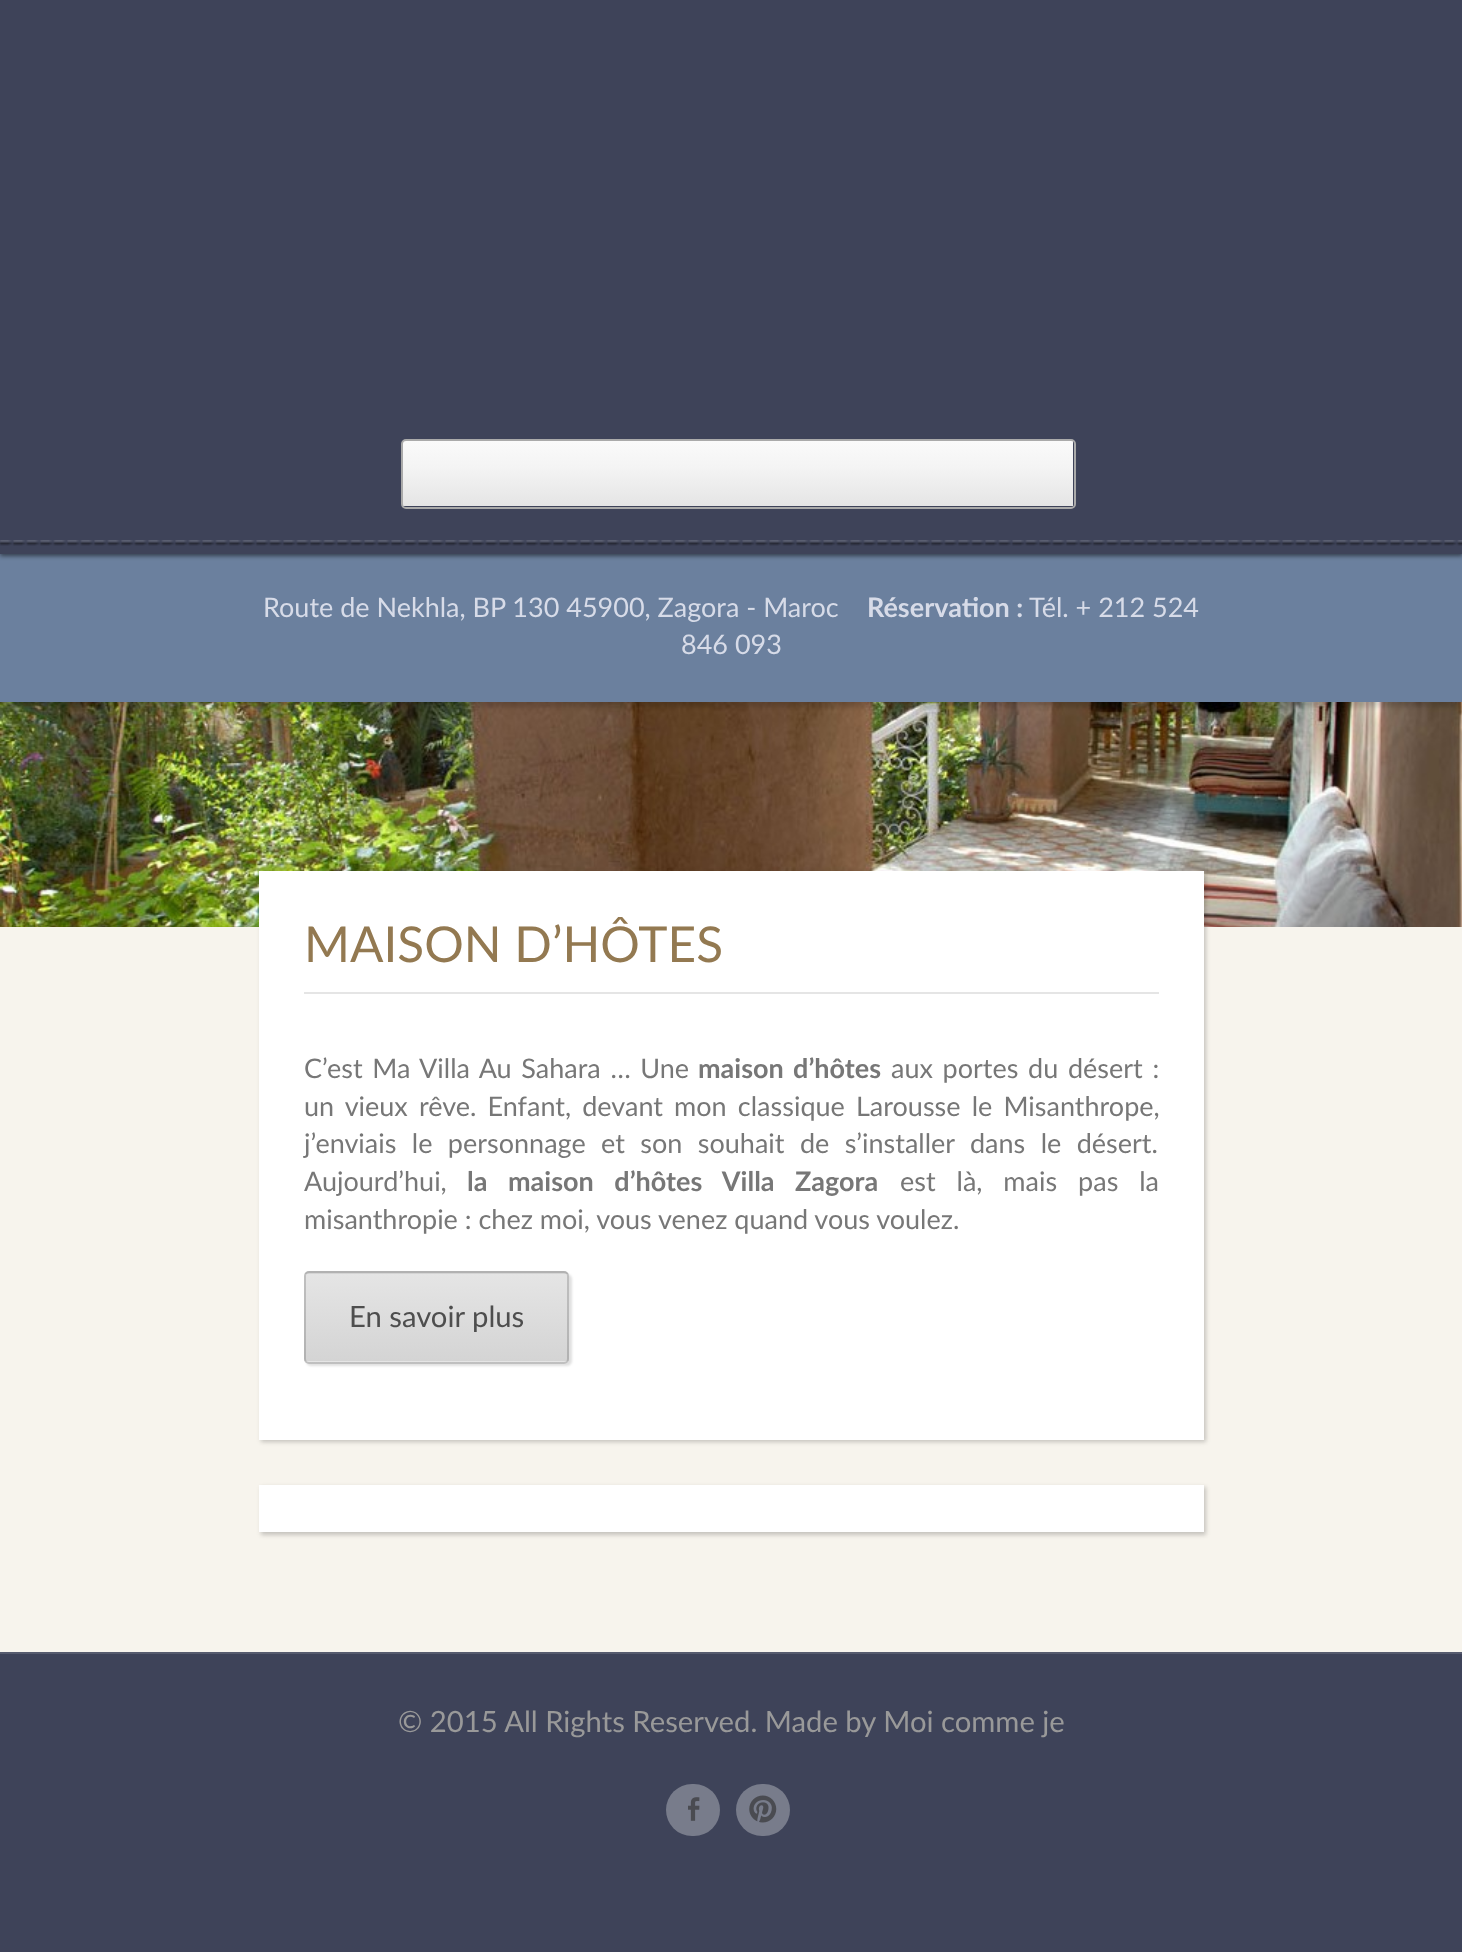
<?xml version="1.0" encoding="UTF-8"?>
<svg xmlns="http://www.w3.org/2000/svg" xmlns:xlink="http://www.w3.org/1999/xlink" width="1462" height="1952">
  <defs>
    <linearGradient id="g1" gradientUnits="userSpaceOnUse" x1="738" y1="441" x2="738" y2="506"><stop offset="0" stop-color="#fafafa" /><stop offset="0.4" stop-color="#f4f4f4" /><stop offset="1" stop-color="#e5e5e5" /></linearGradient>
    <clipPath id="clip1"><rect x="304" y="1271" width="265" height="93" rx="5" /></clipPath>
    <linearGradient id="g2" gradientUnits="userSpaceOnUse" x1="437" y1="1186" x2="437" y2="1274"><stop offset="0" stop-color="#e5e5e5" /><stop offset="1" stop-color="#d4d4d4" /></linearGradient>
    <linearGradient id="g3" gradientUnits="userSpaceOnUse" x1="437" y1="1274" x2="437" y2="1361"><stop offset="0" stop-color="#e5e5e5" /><stop offset="1" stop-color="#d4d4d4" /></linearGradient>
    <linearGradient id="g4" gradientUnits="userSpaceOnUse" x1="437" y1="1361" x2="437" y2="1449"><stop offset="0" stop-color="#e5e5e5" /><stop offset="1" stop-color="#d4d4d4" /></linearGradient>
  </defs>
  <rect width="100%" height="100%" fill="#3e4359" />
  <image x="0" y="702" width="1462" height="225" xlink:href="image2.png" />
  <rect y="558" width="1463" height="149" fill="#000000" fill-opacity="0.15" filter="blur(2px)" />
  <rect y="554" width="1462" height="148" fill="#6b809e" />
  <rect y="2" width="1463" height="554" fill="#000000" fill-opacity="0.5" filter="blur(2px)" />
  <rect width="1462" height="554" fill="#3e4359" />
  <image x="0" y="540" width="1462" height="6" xlink:href="image1.png" />
  <rect x="403" y="441" width="670" height="65" fill="url(#g1)" />
  <rect x="402" y="440" width="673" height="68" rx="4" fill="none" stroke="#aaaaaa" stroke-width="2" />
  <rect y="927" width="1462" height="725" fill="#f7f4ed" />
  <rect x="261" y="873" width="945" height="569" fill="#000000" fill-opacity="0.2" filter="blur(2px)" />
  <rect x="259" y="871" width="945" height="569" fill="#ffffff" />
  <rect x="304" y="992" width="855" height="2" fill="#e5e5e5" />
  <rect x="306" y="1274" width="266" height="92" rx="5" fill="#000000" fill-opacity="0.12" filter="blur(1px)" />
  <g clip-path="url(#clip1)">
    <rect x="304" y="1271" width="265" height="3" fill="url(#g2)" />
    <rect x="304" y="1274" width="265" height="87" fill="url(#g3)" />
    <rect x="304" y="1361" width="265" height="3" fill="url(#g4)" />
  </g>
  <rect x="305" y="1272" width="263" height="91" rx="4" fill="none" stroke="#000000" stroke-opacity="0.16" stroke-width="2" />
  <rect x="261" y="1487" width="945" height="48" fill="#000000" fill-opacity="0.2" filter="blur(2px)" />
  <rect x="259" y="1485" width="945" height="47" fill="#ffffff" />
  <rect y="1652" width="1462" height="2" fill="#565b6e" />
  <rect x="666" y="1784" width="54" height="52" rx="26" fill="#787c8b" />
  <image x="688" y="1797" width="12" height="24" xlink:href="image3.png" />
  <rect x="736" y="1784" width="54" height="52" rx="26" fill="#787c8b" />
  <image x="749" y="1795" width="28" height="28" xlink:href="image4.png" />
  <text x="263" y="617" style="font-family: Lato; font-size: 27px; fill: #d7dbe8">Route de Nekhla, BP 130 45900, Zagora - Maroc</text>
  <text x="867" y="617" style="font-family: Lato; font-size: 27px; font-weight: bold; fill: #d7dbe8">Réservation :</text>
  <text x="1029" y="617" style="font-family: Lato; font-size: 27px; fill: #d7dbe8">Tél. + 212 524</text>
  <text x="681" y="654" style="font-family: Lato; font-size: 27px; fill: #d7dbe8">846 093</text>
  <text x="304" y="962" style="font-family: Lato; font-size: 49.5px; fill: #937951">MAISON D’HÔTES</text>
  <text x="304" y="1078" word-spacing="2.75" style="font-family: Lato; font-size: 27px; fill: #777777">C’est Ma Villa Au Sahara … Une</text>
  <text x="698" y="1078" word-spacing="2.75" style="font-family: Lato; font-size: 27px; font-weight: bold; fill: #777777">maison d’hôtes</text>
  <text x="891" y="1078" word-spacing="2.75" style="font-family: Lato; font-size: 27px; fill: #777777">aux portes du désert :</text>
  <text x="304" y="1116" word-spacing="4.25" style="font-family: Lato; font-size: 27px; fill: #777777">un vieux rêve. Enfant, devant mon classique Larousse le Misanthrope,</text>
  <text x="304" y="1153" word-spacing="8.5" style="font-family: Lato; font-size: 27px; fill: #777777">j’enviais le personnage et son souhait de s’installer dans le désert.</text>
  <text x="304" y="1191" style="font-family: Lato; font-size: 27px; fill: #777777">Aujourd’hui,</text>
  <text x="467" y="1191" word-spacing="14" style="font-family: Lato; font-size: 27px; font-weight: bold; fill: #777777">la maison d’hôtes Villa</text>
  <text x="795" y="1191" style="font-family: Lato; font-size: 27px; font-weight: bold; fill: #777777">Zagora</text>
  <text x="900" y="1191" word-spacing="14" style="font-family: Lato; font-size: 27px; fill: #777777">est là, mais pas la</text>
  <text x="304" y="1229" style="font-family: Lato; font-size: 27px; fill: #777777">misanthropie : chez moi, vous venez quand vous voulez.</text>
  <text x="349" y="1327" style="font-family: Lato; font-size: 29.25px; fill: #4e4e4e">En savoir plus</text>
  <text x="398" y="1732" style="font-family: Lato; font-size: 29.25px; fill: #999999">© 2015 All Rights Reserved. Made by Moi comme je</text>
</svg>
